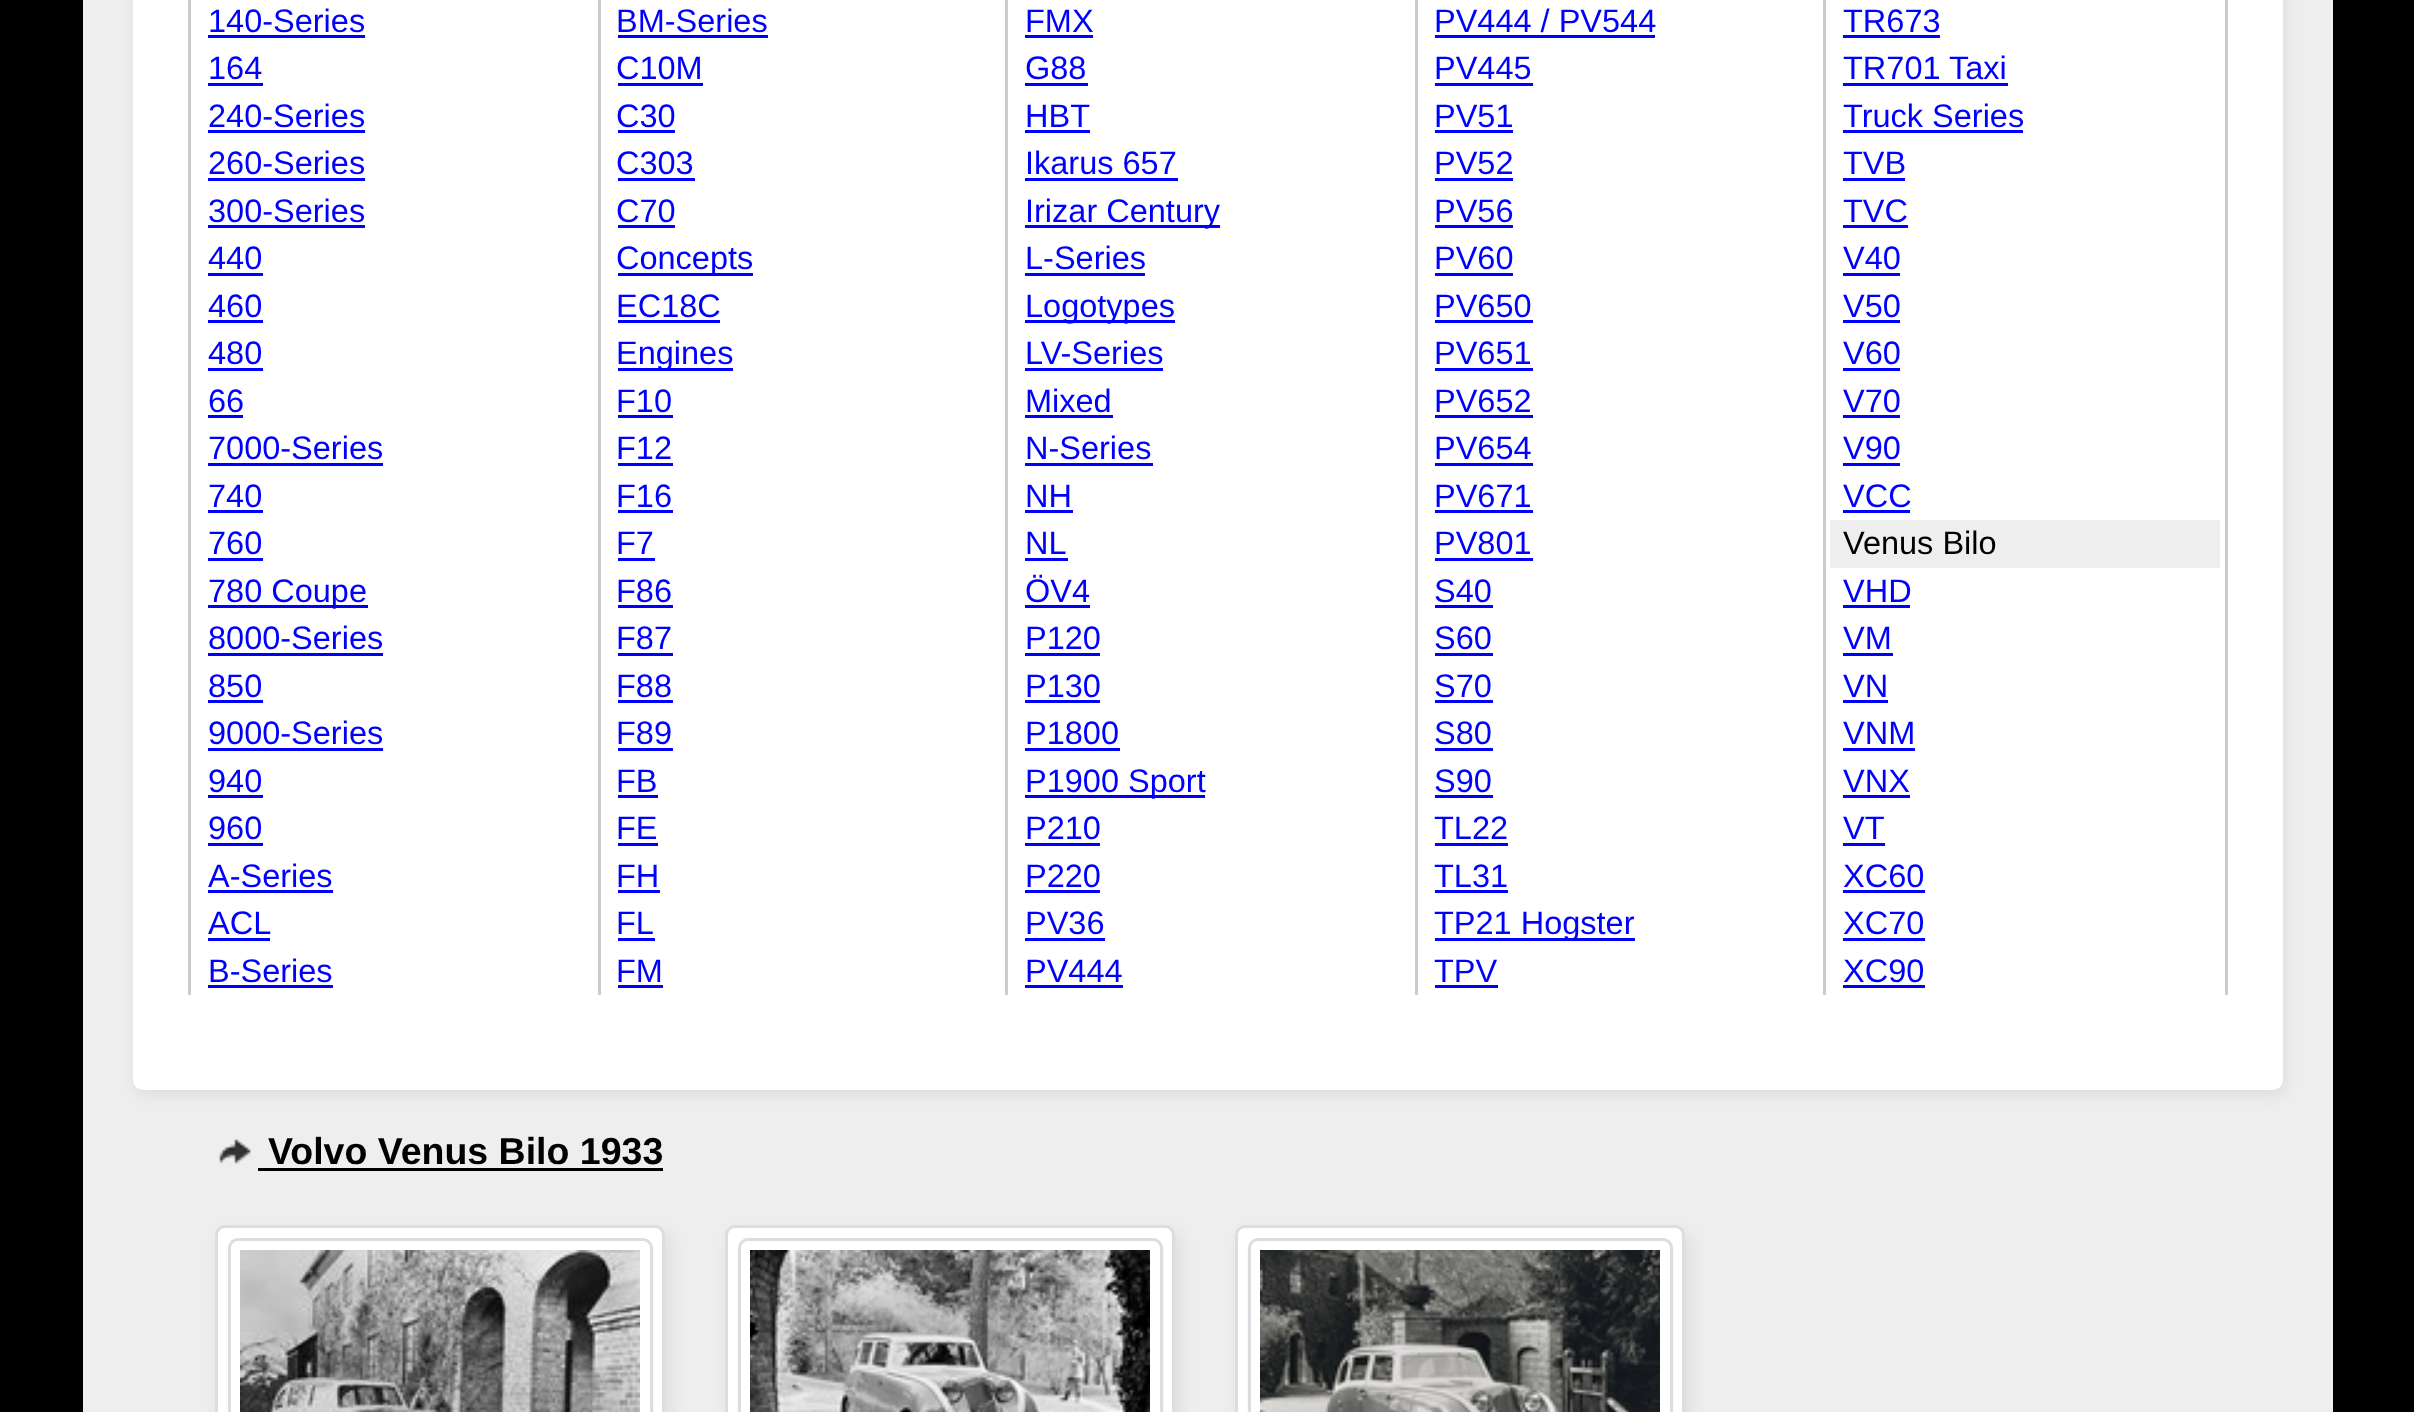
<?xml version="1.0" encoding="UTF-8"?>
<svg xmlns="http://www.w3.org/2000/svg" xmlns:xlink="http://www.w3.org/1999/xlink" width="2414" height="1412">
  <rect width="100%" height="100%" fill="#000000" />
  <rect x="83" width="2250" height="1412" fill="#eeeeee" />
  <rect x="135" y="-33" width="2150" height="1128" rx="10" fill="#000000" fill-opacity="0.07" filter="blur(7.5px)" />
  <rect x="133" y="-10" width="2150" height="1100" rx="10" fill="#ffffff" />
  <rect x="188" width="3" height="995" fill="#cccccc" />
  <rect x="208" y="35" width="157" height="3" fill="#0000ff" />
  <rect x="208" y="83" width="55" height="3" fill="#0000ff" />
  <rect x="208" y="130" width="157" height="3" fill="#0000ff" />
  <rect x="208" y="178" width="157" height="3" fill="#0000ff" />
  <rect x="208" y="225" width="157" height="3" fill="#0000ff" />
  <rect x="208" y="273" width="55" height="3" fill="#0000ff" />
  <rect x="208" y="320" width="55" height="3" fill="#0000ff" />
  <rect x="208" y="368" width="55" height="3" fill="#0000ff" />
  <rect x="208" y="415" width="35" height="3" fill="#0000ff" />
  <rect x="208" y="463" width="175" height="3" fill="#0000ff" />
  <rect x="208" y="510" width="55" height="3" fill="#0000ff" />
  <rect x="208" y="558" width="55" height="3" fill="#0000ff" />
  <rect x="208" y="605" width="160" height="3" fill="#0000ff" />
  <rect x="208" y="653" width="175" height="3" fill="#0000ff" />
  <rect x="208" y="700" width="55" height="3" fill="#0000ff" />
  <rect x="208" y="748" width="175" height="3" fill="#0000ff" />
  <rect x="208" y="795" width="55" height="3" fill="#0000ff" />
  <rect x="208" y="843" width="55" height="3" fill="#0000ff" />
  <rect x="208" y="890" width="125" height="3" fill="#0000ff" />
  <rect x="208" y="938" width="62" height="3" fill="#0000ff" />
  <rect x="208" y="985" width="125" height="3" fill="#0000ff" />
  <rect x="598" width="3" height="995" fill="#cccccc" />
  <rect x="618" y="35" width="150" height="3" fill="#0000ff" />
  <rect x="618" y="83" width="85" height="3" fill="#0000ff" />
  <rect x="618" y="130" width="57" height="3" fill="#0000ff" />
  <rect x="618" y="178" width="77" height="3" fill="#0000ff" />
  <rect x="618" y="225" width="57" height="3" fill="#0000ff" />
  <rect x="618" y="273" width="135" height="3" fill="#0000ff" />
  <rect x="618" y="320" width="102" height="3" fill="#0000ff" />
  <rect x="618" y="368" width="115" height="3" fill="#0000ff" />
  <rect x="618" y="415" width="55" height="3" fill="#0000ff" />
  <rect x="618" y="463" width="55" height="3" fill="#0000ff" />
  <rect x="618" y="510" width="55" height="3" fill="#0000ff" />
  <rect x="618" y="558" width="37" height="3" fill="#0000ff" />
  <rect x="618" y="605" width="55" height="3" fill="#0000ff" />
  <rect x="618" y="653" width="55" height="3" fill="#0000ff" />
  <rect x="618" y="700" width="55" height="3" fill="#0000ff" />
  <rect x="618" y="748" width="55" height="3" fill="#0000ff" />
  <rect x="618" y="795" width="40" height="3" fill="#0000ff" />
  <rect x="618" y="843" width="40" height="3" fill="#0000ff" />
  <rect x="618" y="890" width="42" height="3" fill="#0000ff" />
  <rect x="618" y="938" width="37" height="3" fill="#0000ff" />
  <rect x="618" y="985" width="45" height="3" fill="#0000ff" />
  <rect x="1005" width="3" height="995" fill="#cccccc" />
  <rect x="1025" y="35" width="68" height="3" fill="#0000ff" />
  <rect x="1025" y="83" width="63" height="3" fill="#0000ff" />
  <rect x="1025" y="130" width="65" height="3" fill="#0000ff" />
  <rect x="1025" y="178" width="153" height="3" fill="#0000ff" />
  <rect x="1025" y="225" width="195" height="3" fill="#0000ff" />
  <rect x="1025" y="273" width="120" height="3" fill="#0000ff" />
  <rect x="1025" y="320" width="150" height="3" fill="#0000ff" />
  <rect x="1025" y="368" width="138" height="3" fill="#0000ff" />
  <rect x="1025" y="415" width="88" height="3" fill="#0000ff" />
  <rect x="1025" y="463" width="128" height="3" fill="#0000ff" />
  <rect x="1025" y="510" width="48" height="3" fill="#0000ff" />
  <rect x="1025" y="558" width="43" height="3" fill="#0000ff" />
  <rect x="1025" y="605" width="65" height="3" fill="#0000ff" />
  <rect x="1025" y="653" width="75" height="3" fill="#0000ff" />
  <rect x="1025" y="700" width="75" height="3" fill="#0000ff" />
  <rect x="1025" y="748" width="95" height="3" fill="#0000ff" />
  <rect x="1025" y="795" width="180" height="3" fill="#0000ff" />
  <rect x="1025" y="843" width="75" height="3" fill="#0000ff" />
  <rect x="1025" y="890" width="75" height="3" fill="#0000ff" />
  <rect x="1025" y="938" width="80" height="3" fill="#0000ff" />
  <rect x="1025" y="985" width="98" height="3" fill="#0000ff" />
  <rect x="1415" width="3" height="995" fill="#cccccc" />
  <rect x="1435" y="35" width="220" height="3" fill="#0000ff" />
  <rect x="1435" y="83" width="98" height="3" fill="#0000ff" />
  <rect x="1435" y="130" width="78" height="3" fill="#0000ff" />
  <rect x="1435" y="178" width="78" height="3" fill="#0000ff" />
  <rect x="1435" y="225" width="78" height="3" fill="#0000ff" />
  <rect x="1435" y="273" width="78" height="3" fill="#0000ff" />
  <rect x="1435" y="320" width="98" height="3" fill="#0000ff" />
  <rect x="1435" y="368" width="98" height="3" fill="#0000ff" />
  <rect x="1435" y="415" width="98" height="3" fill="#0000ff" />
  <rect x="1435" y="463" width="98" height="3" fill="#0000ff" />
  <rect x="1435" y="510" width="98" height="3" fill="#0000ff" />
  <rect x="1435" y="558" width="98" height="3" fill="#0000ff" />
  <rect x="1435" y="605" width="58" height="3" fill="#0000ff" />
  <rect x="1435" y="653" width="58" height="3" fill="#0000ff" />
  <rect x="1435" y="700" width="58" height="3" fill="#0000ff" />
  <rect x="1435" y="748" width="58" height="3" fill="#0000ff" />
  <rect x="1435" y="795" width="58" height="3" fill="#0000ff" />
  <rect x="1435" y="843" width="73" height="3" fill="#0000ff" />
  <rect x="1435" y="890" width="73" height="3" fill="#0000ff" />
  <rect x="1435" y="938" width="200" height="3" fill="#0000ff" />
  <rect x="1435" y="985" width="63" height="3" fill="#0000ff" />
  <rect x="2225" width="3" height="995" fill="#cccccc" />
  <rect x="1823" width="3" height="995" fill="#cccccc" />
  <rect x="1843" y="35" width="97" height="3" fill="#0000ff" />
  <rect x="1843" y="83" width="165" height="3" fill="#0000ff" />
  <rect x="1843" y="130" width="180" height="3" fill="#0000ff" />
  <rect x="1843" y="178" width="62" height="3" fill="#0000ff" />
  <rect x="1843" y="225" width="65" height="3" fill="#0000ff" />
  <rect x="1843" y="273" width="57" height="3" fill="#0000ff" />
  <rect x="1843" y="320" width="57" height="3" fill="#0000ff" />
  <rect x="1843" y="368" width="57" height="3" fill="#0000ff" />
  <rect x="1843" y="415" width="57" height="3" fill="#0000ff" />
  <rect x="1843" y="463" width="57" height="3" fill="#0000ff" />
  <rect x="1843" y="510" width="67" height="3" fill="#0000ff" />
  <rect x="1830" y="520" width="390" height="48" fill="#eeeeee" />
  <rect x="1843" y="605" width="67" height="3" fill="#0000ff" />
  <rect x="1843" y="653" width="50" height="3" fill="#0000ff" />
  <rect x="1843" y="700" width="45" height="3" fill="#0000ff" />
  <rect x="1843" y="748" width="72" height="3" fill="#0000ff" />
  <rect x="1843" y="795" width="67" height="3" fill="#0000ff" />
  <rect x="1843" y="843" width="42" height="3" fill="#0000ff" />
  <rect x="1843" y="890" width="82" height="3" fill="#0000ff" />
  <rect x="1843" y="938" width="82" height="3" fill="#0000ff" />
  <rect x="1843" y="985" width="82" height="3" fill="#0000ff" />
  <image x="219" y="1139" width="32" height="26" xlink:href="image1.png" />
  <rect x="258" y="1168" width="405" height="3" fill="#000000" />
  <rect x="220" y="1233" width="450" height="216" rx="10" fill="#000000" fill-opacity="0.07" filter="blur(9px)" />
  <rect x="216.5" y="1226.5" width="447" height="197" rx="8.5" fill="#ffffff" stroke="#dddddd" stroke-width="3" />
  <rect x="228" y="1240" width="425" height="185" rx="10" fill="#000000" fill-opacity="0.07" filter="blur(1px)" />
  <rect x="229.5" y="1239.5" width="422" height="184" rx="8.5" fill="#ffffff" stroke="#dddddd" stroke-width="3" />
  <image x="240" y="1250" width="400" height="162" xlink:href="image2.png" />
  <rect x="730" y="1233" width="450" height="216" rx="10" fill="#000000" fill-opacity="0.07" filter="blur(9px)" />
  <rect x="726.5" y="1226.5" width="447" height="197" rx="8.5" fill="#ffffff" stroke="#dddddd" stroke-width="3" />
  <rect x="738" y="1240" width="425" height="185" rx="10" fill="#000000" fill-opacity="0.07" filter="blur(1px)" />
  <rect x="739.5" y="1239.5" width="422" height="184" rx="8.5" fill="#ffffff" stroke="#dddddd" stroke-width="3" />
  <image x="750" y="1250" width="400" height="162" xlink:href="image3.png" />
  <rect x="1240" y="1233" width="450" height="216" rx="10" fill="#000000" fill-opacity="0.07" filter="blur(9px)" />
  <rect x="1236.5" y="1226.5" width="447" height="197" rx="8.5" fill="#ffffff" stroke="#dddddd" stroke-width="3" />
  <rect x="1248" y="1240" width="425" height="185" rx="10" fill="#000000" fill-opacity="0.07" filter="blur(1px)" />
  <rect x="1249.5" y="1239.5" width="422" height="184" rx="8.5" fill="#ffffff" stroke="#dddddd" stroke-width="3" />
  <image x="1260" y="1250" width="400" height="162" xlink:href="image4.png" />
  <text x="208" y="32" style="font-family: Liberation Sans; font-size: 32.5px; fill: #0000ff">140-Series</text>
  <text x="208" y="79" style="font-family: Liberation Sans; font-size: 32.5px; fill: #0000ff">164</text>
  <text x="208" y="127" style="font-family: Liberation Sans; font-size: 32.5px; fill: #0000ff">240-Series</text>
  <text x="208" y="174" style="font-family: Liberation Sans; font-size: 32.5px; fill: #0000ff">260-Series</text>
  <text x="208" y="222" style="font-family: Liberation Sans; font-size: 32.5px; fill: #0000ff">300-Series</text>
  <text x="208" y="269" style="font-family: Liberation Sans; font-size: 32.5px; fill: #0000ff">440</text>
  <text x="208" y="317" style="font-family: Liberation Sans; font-size: 32.5px; fill: #0000ff">460</text>
  <text x="208" y="364" style="font-family: Liberation Sans; font-size: 32.5px; fill: #0000ff">480</text>
  <text x="208" y="412" style="font-family: Liberation Sans; font-size: 32.5px; fill: #0000ff">66</text>
  <text x="208" y="459" style="font-family: Liberation Sans; font-size: 32.5px; fill: #0000ff">7000-Series</text>
  <text x="208" y="507" style="font-family: Liberation Sans; font-size: 32.5px; fill: #0000ff">740</text>
  <text x="208" y="554" style="font-family: Liberation Sans; font-size: 32.5px; fill: #0000ff">760</text>
  <text x="208" y="602" style="font-family: Liberation Sans; font-size: 32.5px; fill: #0000ff">780 Coupe</text>
  <text x="208" y="649" style="font-family: Liberation Sans; font-size: 32.5px; fill: #0000ff">8000-Series</text>
  <text x="208" y="697" style="font-family: Liberation Sans; font-size: 32.5px; fill: #0000ff">850</text>
  <text x="208" y="744" style="font-family: Liberation Sans; font-size: 32.5px; fill: #0000ff">9000-Series</text>
  <text x="208" y="792" style="font-family: Liberation Sans; font-size: 32.5px; fill: #0000ff">940</text>
  <text x="208" y="839" style="font-family: Liberation Sans; font-size: 32.5px; fill: #0000ff">960</text>
  <text x="208" y="887" style="font-family: Liberation Sans; font-size: 32.5px; fill: #0000ff">A-Series</text>
  <text x="208" y="934" style="font-family: Liberation Sans; font-size: 32.5px; fill: #0000ff">ACL</text>
  <text x="208" y="982" style="font-family: Liberation Sans; font-size: 32.5px; fill: #0000ff">B-Series</text>
  <text x="616" y="32" style="font-family: Liberation Sans; font-size: 32.5px; fill: #0000ff">BM-Series</text>
  <text x="616" y="79" style="font-family: Liberation Sans; font-size: 32.5px; fill: #0000ff">C10M</text>
  <text x="616" y="127" style="font-family: Liberation Sans; font-size: 32.5px; fill: #0000ff">C30</text>
  <text x="616" y="174" style="font-family: Liberation Sans; font-size: 32.5px; fill: #0000ff">C303</text>
  <text x="616" y="222" style="font-family: Liberation Sans; font-size: 32.5px; fill: #0000ff">C70</text>
  <text x="616" y="269" style="font-family: Liberation Sans; font-size: 32.5px; fill: #0000ff">Concepts</text>
  <text x="616" y="317" style="font-family: Liberation Sans; font-size: 32.5px; fill: #0000ff">EC18C</text>
  <text x="616" y="364" style="font-family: Liberation Sans; font-size: 32.5px; fill: #0000ff">Engines</text>
  <text x="616" y="412" style="font-family: Liberation Sans; font-size: 32.5px; fill: #0000ff">F10</text>
  <text x="616" y="459" style="font-family: Liberation Sans; font-size: 32.5px; fill: #0000ff">F12</text>
  <text x="616" y="507" style="font-family: Liberation Sans; font-size: 32.5px; fill: #0000ff">F16</text>
  <text x="616" y="554" style="font-family: Liberation Sans; font-size: 32.5px; fill: #0000ff">F7</text>
  <text x="616" y="602" style="font-family: Liberation Sans; font-size: 32.5px; fill: #0000ff">F86</text>
  <text x="616" y="649" style="font-family: Liberation Sans; font-size: 32.5px; fill: #0000ff">F87</text>
  <text x="616" y="697" style="font-family: Liberation Sans; font-size: 32.5px; fill: #0000ff">F88</text>
  <text x="616" y="744" style="font-family: Liberation Sans; font-size: 32.5px; fill: #0000ff">F89</text>
  <text x="616" y="792" style="font-family: Liberation Sans; font-size: 32.5px; fill: #0000ff">FB</text>
  <text x="616" y="839" style="font-family: Liberation Sans; font-size: 32.5px; fill: #0000ff">FE</text>
  <text x="616" y="887" style="font-family: Liberation Sans; font-size: 32.5px; fill: #0000ff">FH</text>
  <text x="616" y="934" style="font-family: Liberation Sans; font-size: 32.5px; fill: #0000ff">FL</text>
  <text x="616" y="982" style="font-family: Liberation Sans; font-size: 32.5px; fill: #0000ff">FM</text>
  <text x="1025" y="32" style="font-family: Liberation Sans; font-size: 32.5px; fill: #0000ff">FMX</text>
  <text x="1025" y="79" style="font-family: Liberation Sans; font-size: 32.5px; fill: #0000ff">G88</text>
  <text x="1025" y="127" style="font-family: Liberation Sans; font-size: 32.5px; fill: #0000ff">HBT</text>
  <text x="1025" y="174" style="font-family: Liberation Sans; font-size: 32.5px; fill: #0000ff">Ikarus 657</text>
  <text x="1025" y="222" style="font-family: Liberation Sans; font-size: 32.5px; fill: #0000ff">Irizar Century</text>
  <text x="1025" y="269" style="font-family: Liberation Sans; font-size: 32.5px; fill: #0000ff">L-Series</text>
  <text x="1025" y="317" style="font-family: Liberation Sans; font-size: 32.5px; fill: #0000ff">Logotypes</text>
  <text x="1025" y="364" style="font-family: Liberation Sans; font-size: 32.5px; fill: #0000ff">LV-Series</text>
  <text x="1025" y="412" style="font-family: Liberation Sans; font-size: 32.5px; fill: #0000ff">Mixed</text>
  <text x="1025" y="459" style="font-family: Liberation Sans; font-size: 32.5px; fill: #0000ff">N-Series</text>
  <text x="1025" y="507" style="font-family: Liberation Sans; font-size: 32.5px; fill: #0000ff">NH</text>
  <text x="1025" y="554" style="font-family: Liberation Sans; font-size: 32.5px; fill: #0000ff">NL</text>
  <text x="1025" y="602" style="font-family: Liberation Sans; font-size: 32.5px; fill: #0000ff">ÖV4</text>
  <text x="1025" y="649" style="font-family: Liberation Sans; font-size: 32.5px; fill: #0000ff">P120</text>
  <text x="1025" y="697" style="font-family: Liberation Sans; font-size: 32.5px; fill: #0000ff">P130</text>
  <text x="1025" y="744" style="font-family: Liberation Sans; font-size: 32.5px; fill: #0000ff">P1800</text>
  <text x="1025" y="792" style="font-family: Liberation Sans; font-size: 32.5px; fill: #0000ff">P1900 Sport</text>
  <text x="1025" y="839" style="font-family: Liberation Sans; font-size: 32.5px; fill: #0000ff">P210</text>
  <text x="1025" y="887" style="font-family: Liberation Sans; font-size: 32.5px; fill: #0000ff">P220</text>
  <text x="1025" y="934" style="font-family: Liberation Sans; font-size: 32.5px; fill: #0000ff">PV36</text>
  <text x="1025" y="982" style="font-family: Liberation Sans; font-size: 32.5px; fill: #0000ff">PV444</text>
  <text x="1434" y="32" style="font-family: Liberation Sans; font-size: 32.5px; fill: #0000ff">PV444 / PV544</text>
  <text x="1434" y="79" style="font-family: Liberation Sans; font-size: 32.5px; fill: #0000ff">PV445</text>
  <text x="1434" y="127" style="font-family: Liberation Sans; font-size: 32.5px; fill: #0000ff">PV51</text>
  <text x="1434" y="174" style="font-family: Liberation Sans; font-size: 32.5px; fill: #0000ff">PV52</text>
  <text x="1434" y="222" style="font-family: Liberation Sans; font-size: 32.5px; fill: #0000ff">PV56</text>
  <text x="1434" y="269" style="font-family: Liberation Sans; font-size: 32.5px; fill: #0000ff">PV60</text>
  <text x="1434" y="317" style="font-family: Liberation Sans; font-size: 32.5px; fill: #0000ff">PV650</text>
  <text x="1434" y="364" style="font-family: Liberation Sans; font-size: 32.5px; fill: #0000ff">PV651</text>
  <text x="1434" y="412" style="font-family: Liberation Sans; font-size: 32.5px; fill: #0000ff">PV652</text>
  <text x="1434" y="459" style="font-family: Liberation Sans; font-size: 32.5px; fill: #0000ff">PV654</text>
  <text x="1434" y="507" style="font-family: Liberation Sans; font-size: 32.5px; fill: #0000ff">PV671</text>
  <text x="1434" y="554" style="font-family: Liberation Sans; font-size: 32.5px; fill: #0000ff">PV801</text>
  <text x="1434" y="602" style="font-family: Liberation Sans; font-size: 32.5px; fill: #0000ff">S40</text>
  <text x="1434" y="649" style="font-family: Liberation Sans; font-size: 32.5px; fill: #0000ff">S60</text>
  <text x="1434" y="697" style="font-family: Liberation Sans; font-size: 32.5px; fill: #0000ff">S70</text>
  <text x="1434" y="744" style="font-family: Liberation Sans; font-size: 32.5px; fill: #0000ff">S80</text>
  <text x="1434" y="792" style="font-family: Liberation Sans; font-size: 32.5px; fill: #0000ff">S90</text>
  <text x="1434" y="839" style="font-family: Liberation Sans; font-size: 32.5px; fill: #0000ff">TL22</text>
  <text x="1434" y="887" style="font-family: Liberation Sans; font-size: 32.5px; fill: #0000ff">TL31</text>
  <text x="1434" y="934" style="font-family: Liberation Sans; font-size: 32.5px; fill: #0000ff">TP21 Hogster</text>
  <text x="1434" y="982" style="font-family: Liberation Sans; font-size: 32.5px; fill: #0000ff">TPV</text>
  <text x="1843" y="32" style="font-family: Liberation Sans; font-size: 32.5px; fill: #0000ff">TR673</text>
  <text x="1843" y="79" style="font-family: Liberation Sans; font-size: 32.5px; fill: #0000ff">TR701 Taxi</text>
  <text x="1843" y="127" style="font-family: Liberation Sans; font-size: 32.5px; fill: #0000ff">Truck Series</text>
  <text x="1843" y="174" style="font-family: Liberation Sans; font-size: 32.5px; fill: #0000ff">TVB</text>
  <text x="1843" y="222" style="font-family: Liberation Sans; font-size: 32.5px; fill: #0000ff">TVC</text>
  <text x="1843" y="269" style="font-family: Liberation Sans; font-size: 32.5px; fill: #0000ff">V40</text>
  <text x="1843" y="317" style="font-family: Liberation Sans; font-size: 32.5px; fill: #0000ff">V50</text>
  <text x="1843" y="364" style="font-family: Liberation Sans; font-size: 32.5px; fill: #0000ff">V60</text>
  <text x="1843" y="412" style="font-family: Liberation Sans; font-size: 32.5px; fill: #0000ff">V70</text>
  <text x="1843" y="459" style="font-family: Liberation Sans; font-size: 32.5px; fill: #0000ff">V90</text>
  <text x="1843" y="507" style="font-family: Liberation Sans; font-size: 32.5px; fill: #0000ff">VCC</text>
  <text x="1843" y="554" style="font-family: Liberation Sans; font-size: 32.5px; fill: #000000">Venus Bilo</text>
  <text x="1843" y="602" style="font-family: Liberation Sans; font-size: 32.5px; fill: #0000ff">VHD</text>
  <text x="1843" y="649" style="font-family: Liberation Sans; font-size: 32.5px; fill: #0000ff">VM</text>
  <text x="1843" y="697" style="font-family: Liberation Sans; font-size: 32.5px; fill: #0000ff">VN</text>
  <text x="1843" y="744" style="font-family: Liberation Sans; font-size: 32.5px; fill: #0000ff">VNM</text>
  <text x="1843" y="792" style="font-family: Liberation Sans; font-size: 32.5px; fill: #0000ff">VNX</text>
  <text x="1843" y="839" style="font-family: Liberation Sans; font-size: 32.5px; fill: #0000ff">VT</text>
  <text x="1843" y="887" style="font-family: Liberation Sans; font-size: 32.5px; fill: #0000ff">XC60</text>
  <text x="1843" y="934" style="font-family: Liberation Sans; font-size: 32.5px; fill: #0000ff">XC70</text>
  <text x="1843" y="982" style="font-family: Liberation Sans; font-size: 32.5px; fill: #0000ff">XC90</text>
  <text x="268" y="1164" style="font-family: Liberation Sans; font-size: 37.5px; font-weight: bold; fill: #000000">Volvo Venus Bilo 1933</text>
</svg>
